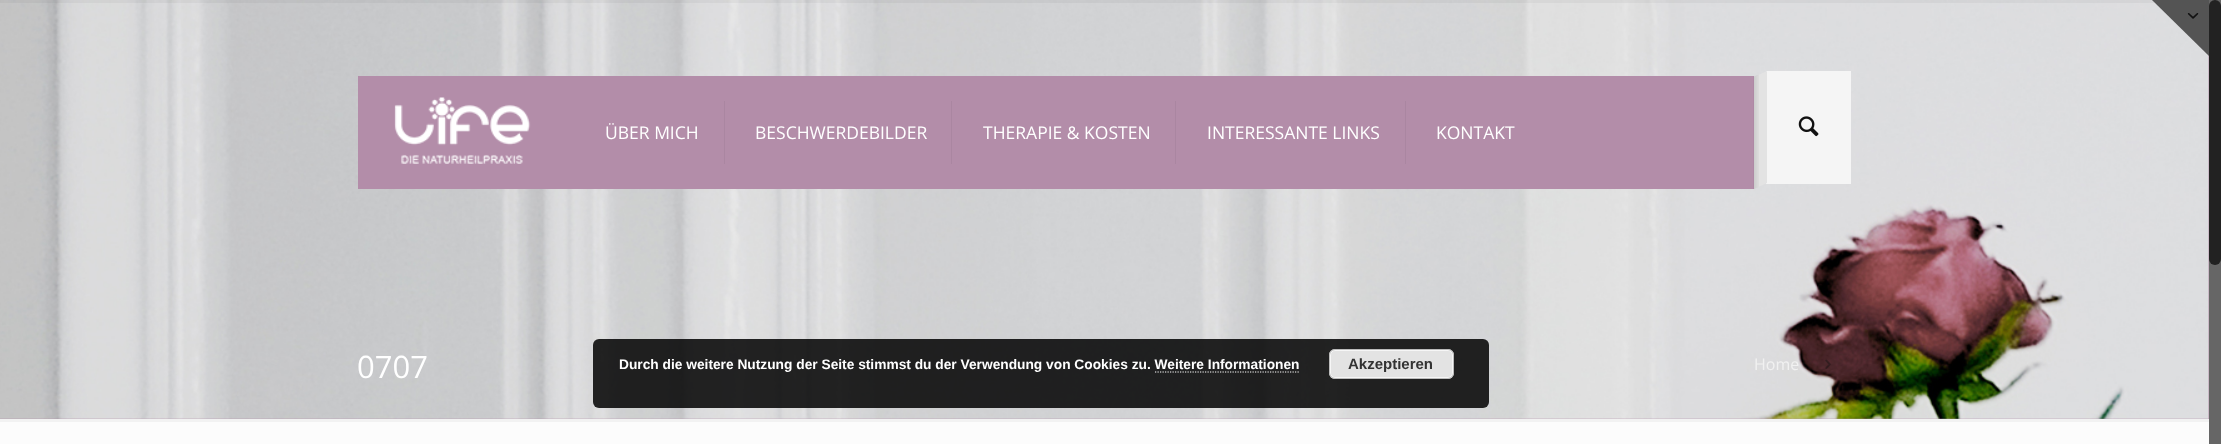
<?xml version="1.0" encoding="UTF-8"?>
<svg xmlns="http://www.w3.org/2000/svg" xmlns:xlink="http://www.w3.org/1999/xlink" width="2221" height="444">
  <rect width="100%" height="100%" fill="#fcfcfc" />
  <rect y="55" width="2209" height="364" fill="#b38da9" />
  <image x="0" y="0" width="2209" height="419" xlink:href="image2.png" />
  <rect width="2155" height="3" fill="#000000" fill-opacity="0.04" />
  <path d="M 2209 0 v 56 l -57 -56 z" fill="#545454" />
  <image x="2187" y="13" width="12" height="6" xlink:href="image1.png" />
  <rect x="2209" width="12" height="444" fill="#666666" />
  <rect x="2209" width="12" height="265" rx="6" fill="#222222" />
  <rect x="358" y="76" width="1396" height="113" fill="#b38da9" />
  <image x="394" y="97" width="137" height="67" xlink:href="image3.png" />
  <rect x="724" y="101" width="1" height="63" fill="#aa86a1" />
  <rect x="951" y="101" width="1" height="63" fill="#aa86a1" />
  <rect x="1175" y="101" width="1" height="63" fill="#aa86a1" />
  <rect x="1405" y="101" width="1" height="63" fill="#aa86a1" />
  <rect x="1766" y="71" width="85" height="113" fill="#f5f5f5" />
  <path d="M 1754 77 l 13 -6 v 112 l -13 6 z" fill="#e3e3e3" />
  <image x="1753" y="75" width="6" height="114" xlink:href="image4.png" />
  <image x="1798" y="116" width="21" height="21" xlink:href="image5.png" />
  <image x="1825" y="359" width="6" height="10" xlink:href="image6.png" />
  <rect y="419" width="2209" height="3" fill="#f2f2f2" />
  <rect x="593" y="339" width="896" height="69" rx="6" fill="#000000" fill-opacity="0.85" />
  <rect x="1329" y="349" width="125" height="30" rx="6" fill="#e3e3e3" />
  <rect x="1330.5" y="350.5" width="122" height="27" rx="4.5" fill="none" stroke="#f6f6f6" />
  <rect x="1329.5" y="349.5" width="124" height="29" rx="5.5" fill="none" stroke="#bbbbbb" />
  <path d="M 1155 372 h 145" fill="none" stroke="#ffffff" stroke-width="1.2" stroke-dasharray="1.25 1.25" />
  <text x="605" y="139" style="font-family: Open Sans; font-size: 17.5px; fill: #ffffff">ÜBER MICH</text>
  <text x="755" y="139" style="font-family: Open Sans; font-size: 17.5px; fill: #ffffff">BESCHWERDEBILDER</text>
  <text x="983" y="139" style="font-family: Open Sans; font-size: 17.5px; fill: #ffffff">THERAPIE &amp; KOSTEN</text>
  <text x="1207" y="139" style="font-family: Open Sans; font-size: 17.5px; fill: #ffffff">INTERESSANTE LINKS</text>
  <text x="1436" y="139" style="font-family: Open Sans; font-size: 17.5px; fill: #ffffff">KONTAKT</text>
  <text x="357" y="378" style="font-family: Open Sans; font-size: 31px; fill: #ffffff">0707</text>
  <text x="1754" y="370" style="font-family: Open Sans; font-size: 16px; fill: #f1f1f1">Home</text>
  <text x="619" y="369" style="font-family: Liberation Sans; font-size: 13.75px; font-weight: bold; fill: #ffffff">Durch die weitere Nutzung der Seite stimmst du der Verwendung von Cookies zu. Weitere Informationen</text>
  <text x="1348" y="369" style="font-family: Liberation Sans; font-size: 15px; font-weight: bold; fill: #333333">Akzeptieren</text>
</svg>
